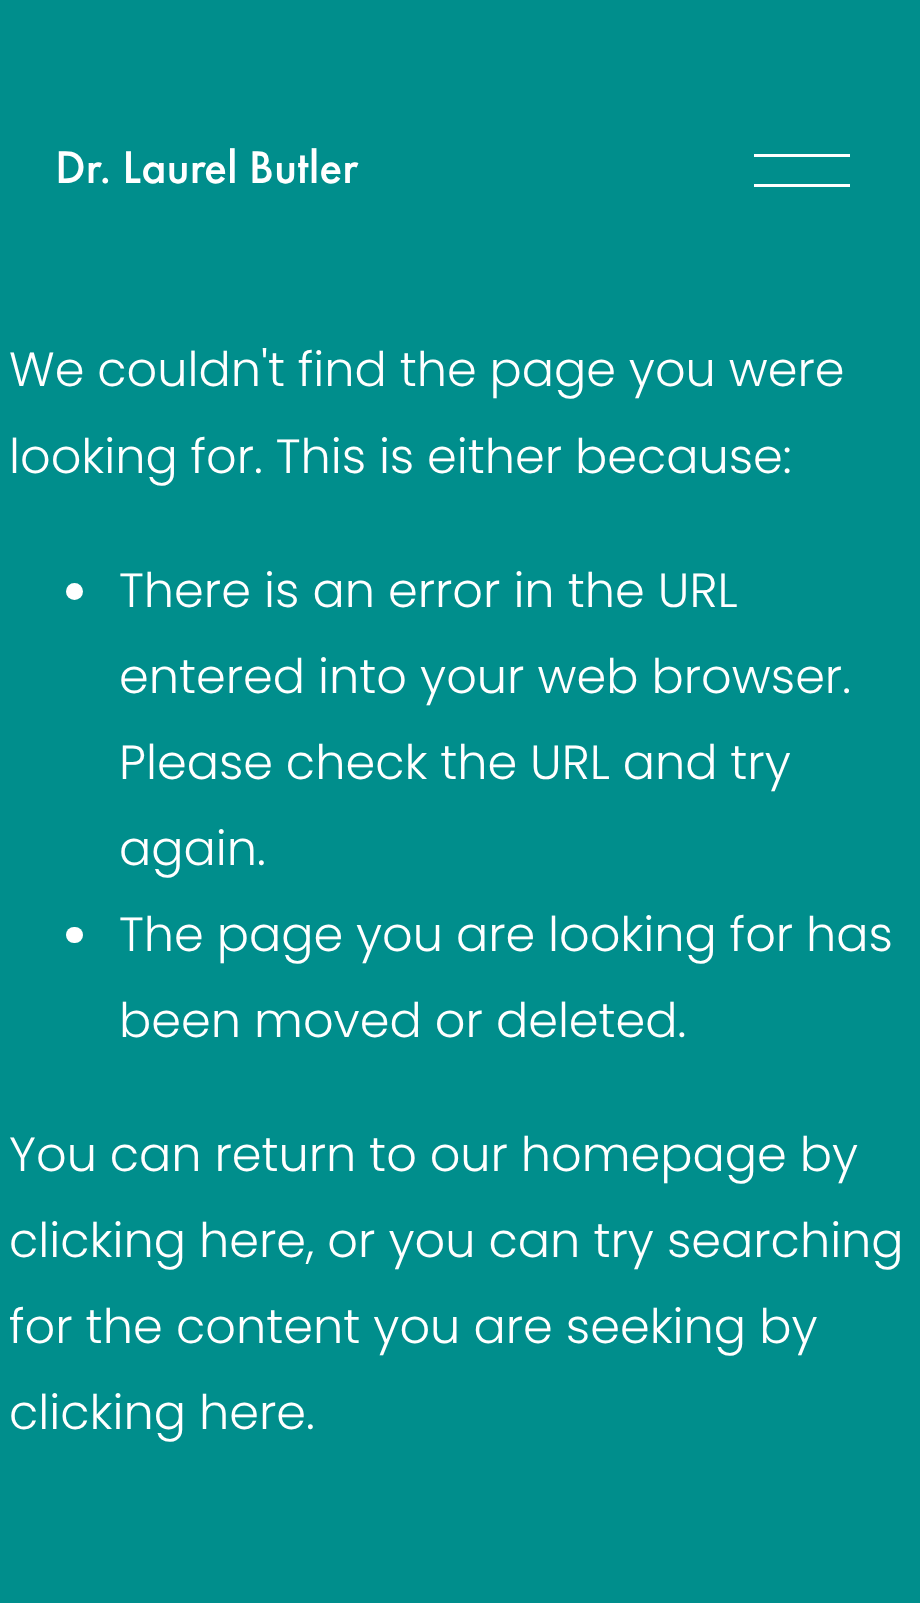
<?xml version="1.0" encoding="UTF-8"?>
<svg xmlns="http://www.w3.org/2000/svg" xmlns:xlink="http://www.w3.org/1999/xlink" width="920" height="1603">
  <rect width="100%" height="100%" fill="#008e8c" />
  <rect x="754" y="154" width="96" height="3" fill="#ffffff" />
  <rect x="754" y="184" width="96" height="3" fill="#ffffff" />
  <circle cx="74.5" cy="591.5" r="8.5" fill="#ffffff" />
  <rect x="66" y="927" width="17" height="16" rx="8" fill="#ffffff" />
  <text x="55" y="183" style="font-family: Futura PT; font-size: 47.8px; font-weight: 500; fill: #ffffff">Dr. Laurel Butler</text>
  <text x="9" y="386" word-spacing="-0.25" style="font-family: Poppins; font-size: 47.8px; font-weight: 300; fill: #ffffff">We couldn't find the page you were</text>
  <text x="9" y="473" word-spacing="-0.25" style="font-family: Poppins; font-size: 47.8px; font-weight: 300; fill: #ffffff">looking for. This is either because:</text>
  <text x="119" y="607" style="font-family: Poppins; font-size: 47.8px; font-weight: 300; fill: #ffffff">There is an error in the URL</text>
  <text x="119" y="693" style="font-family: Poppins; font-size: 47.8px; font-weight: 300; fill: #ffffff">entered into your web browser.</text>
  <text x="119" y="779" word-spacing="-0.25" style="font-family: Poppins; font-size: 47.8px; font-weight: 300; fill: #ffffff">Please check the URL and try</text>
  <text x="119" y="865" style="font-family: Poppins; font-size: 47.8px; font-weight: 300; fill: #ffffff">again.</text>
  <text x="119" y="951" word-spacing="-0.25" style="font-family: Poppins; font-size: 47.8px; font-weight: 300; fill: #ffffff">The page you are looking for has</text>
  <text x="119" y="1037" style="font-family: Poppins; font-size: 47.8px; font-weight: 300; fill: #ffffff">been moved or deleted.</text>
  <text x="9" y="1171" word-spacing="-0.25" style="font-family: Poppins; font-size: 47.8px; font-weight: 300; fill: #ffffff">You can return to our homepage by</text>
  <text x="9" y="1257" style="font-family: Poppins; font-size: 47.8px; font-weight: 300; fill: #ffffff">clicking here</text>
  <text x="306" y="1257" style="font-family: Poppins; font-size: 47.8px; font-weight: 300; fill: #ffffff">, or you can try searching</text>
  <text x="9" y="1343" style="font-family: Poppins; font-size: 47.8px; font-weight: 300; fill: #ffffff">for the</text>
  <text x="176" y="1343" style="font-family: Poppins; font-size: 47.8px; font-weight: 300; fill: #ffffff">content you are seeking by</text>
  <text x="9" y="1429" style="font-family: Poppins; font-size: 47.8px; font-weight: 300; fill: #ffffff">clicking here</text>
  <text x="306" y="1429" style="font-family: Poppins; font-size: 47.8px; font-weight: 300; fill: #ffffff">.</text>
</svg>
